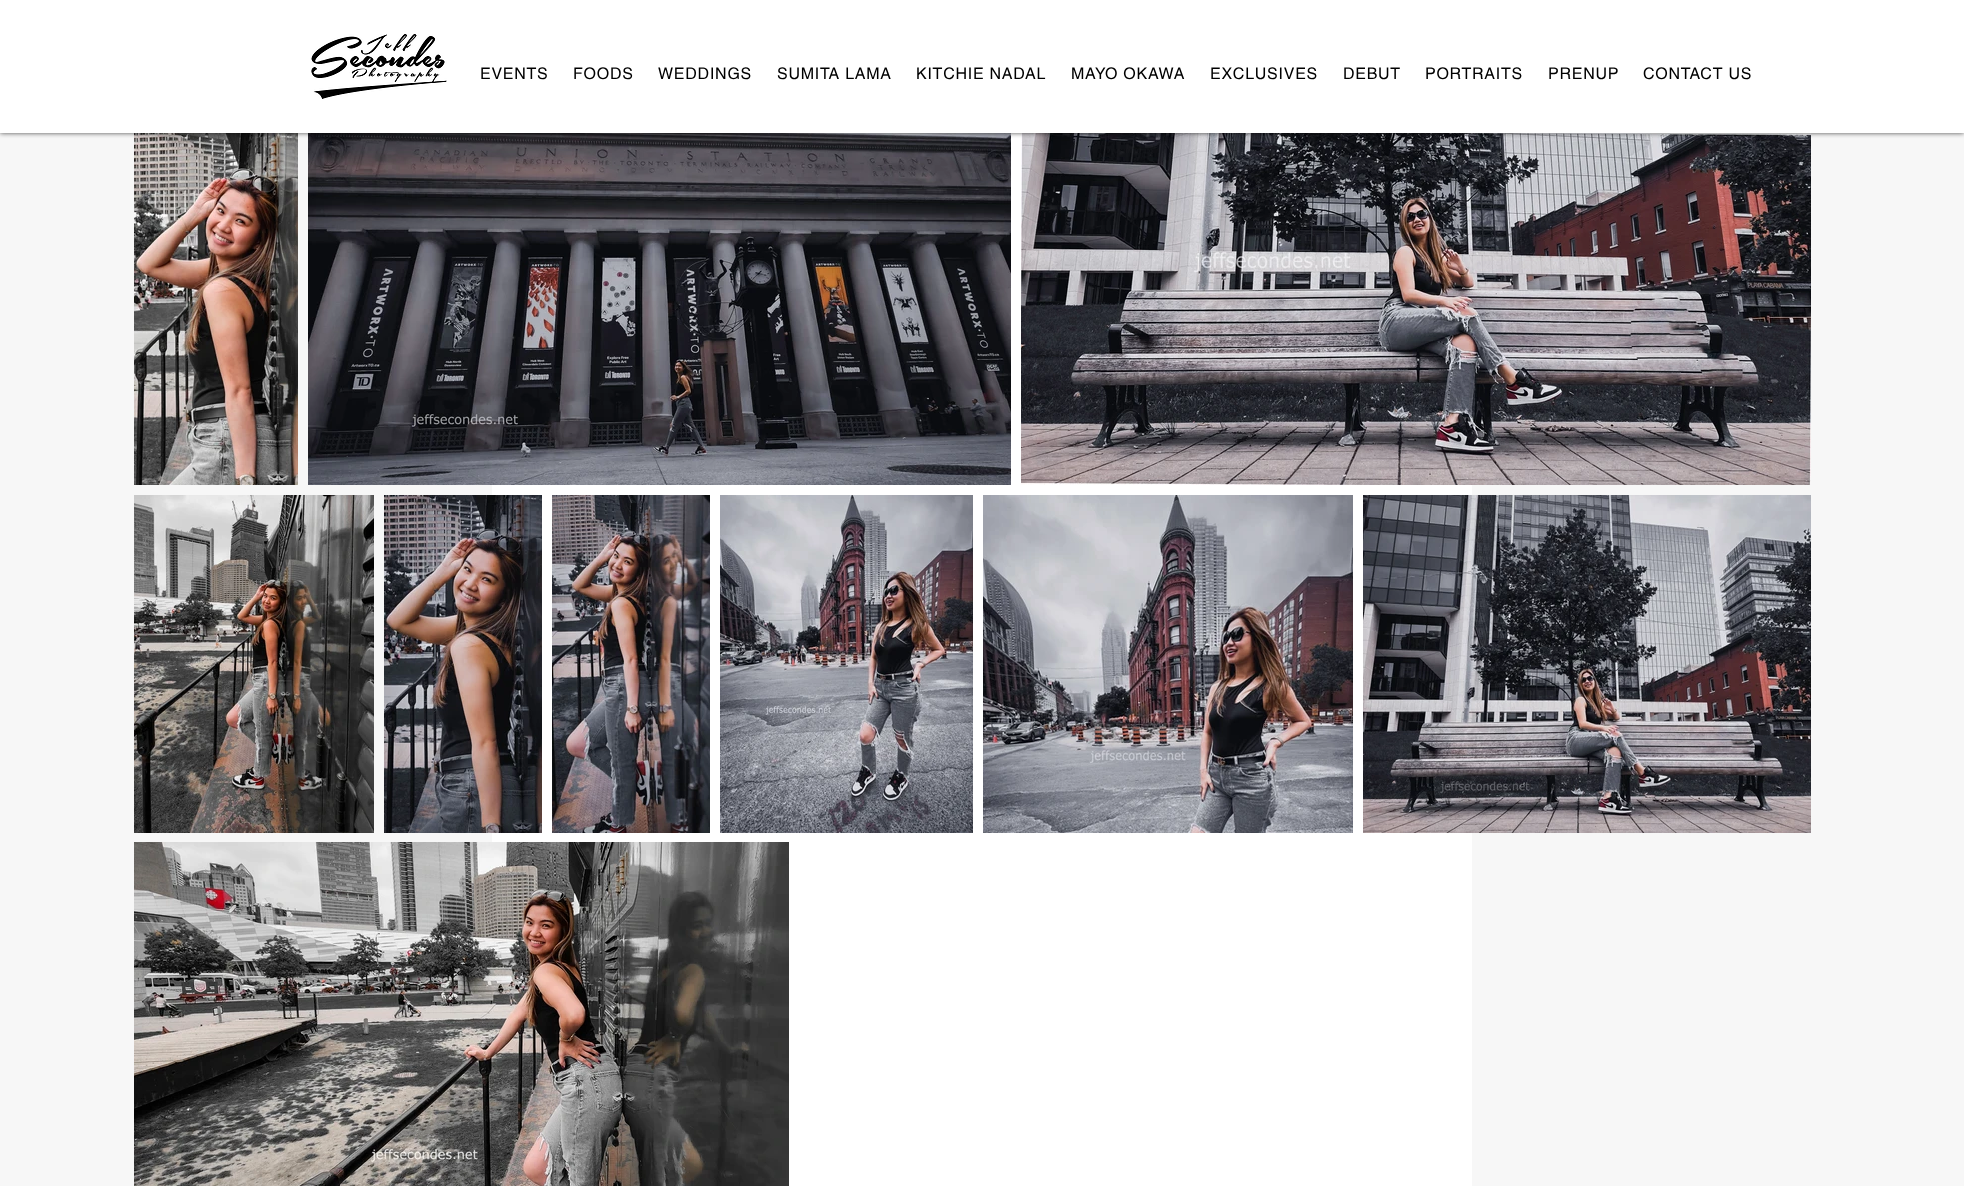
<?xml version="1.0" encoding="UTF-8"?>
<svg xmlns="http://www.w3.org/2000/svg" xmlns:xlink="http://www.w3.org/1999/xlink" width="1964" height="1186">
  <rect width="100%" height="100%" fill="#f7f7f7" />
  <image x="134" y="133" width="164" height="352" xlink:href="image2.png" />
  <rect x="492" y="133" width="980" height="1053" fill="#ffffff" />
  <image x="308" y="133" width="703" height="352" xlink:href="image3.png" />
  <image x="1021" y="133" width="790" height="352" xlink:href="image4.png" />
  <rect width="1964" height="133" fill="#000000" fill-opacity="0.7" filter="blur(2.5px)" />
  <rect width="1964" height="133" fill="#ffffff" />
  <image x="311" y="34" width="136" height="65" xlink:href="image1.png" />
  <image x="134" y="495" width="240" height="338" xlink:href="image5.png" />
  <image x="384" y="495" width="158" height="338" xlink:href="image6.png" />
  <image x="552" y="495" width="158" height="338" xlink:href="image7.png" />
  <image x="720" y="495" width="253" height="338" xlink:href="image8.png" />
  <image x="983" y="495" width="370" height="338" xlink:href="image9.png" />
  <image x="1363" y="495" width="448" height="338" xlink:href="image10.png" />
  <image x="134" y="842" width="655" height="344" xlink:href="image11.png" />
  <text x="480" y="79" style="font-family: helvetica; font-size: 16px; letter-spacing: 0.75px; fill: #000000">EVENTS</text>
  <text x="573" y="79" style="font-family: helvetica; font-size: 16px; letter-spacing: 0.75px; fill: #000000">FOODS</text>
  <text x="658" y="79" style="font-family: helvetica; font-size: 16px; letter-spacing: 0.75px; fill: #000000">WEDDINGS</text>
  <text x="777" y="79" style="font-family: helvetica; font-size: 16px; letter-spacing: 0.75px; fill: #000000">SUMITA LAMA</text>
  <text x="916" y="79" style="font-family: helvetica; font-size: 16px; letter-spacing: 0.75px; fill: #000000">KITCHIE NADAL</text>
  <text x="1071" y="79" style="font-family: helvetica; font-size: 16px; letter-spacing: 0.75px; fill: #000000">MAYO OKAWA</text>
  <text x="1210" y="79" style="font-family: helvetica; font-size: 16px; letter-spacing: 0.75px; fill: #000000">EXCLUSIVES</text>
  <text x="1343" y="79" style="font-family: helvetica; font-size: 16px; letter-spacing: 0.75px; fill: #000000">DEBUT</text>
  <text x="1425" y="79" style="font-family: helvetica; font-size: 16px; letter-spacing: 0.75px; fill: #000000">PORTRAITS</text>
  <text x="1548" y="79" style="font-family: helvetica; font-size: 16px; letter-spacing: 0.75px; fill: #000000">PRENUP</text>
  <text x="1643" y="79" style="font-family: helvetica; font-size: 16px; letter-spacing: 0.75px; fill: #000000">CONTACT US</text>
</svg>
